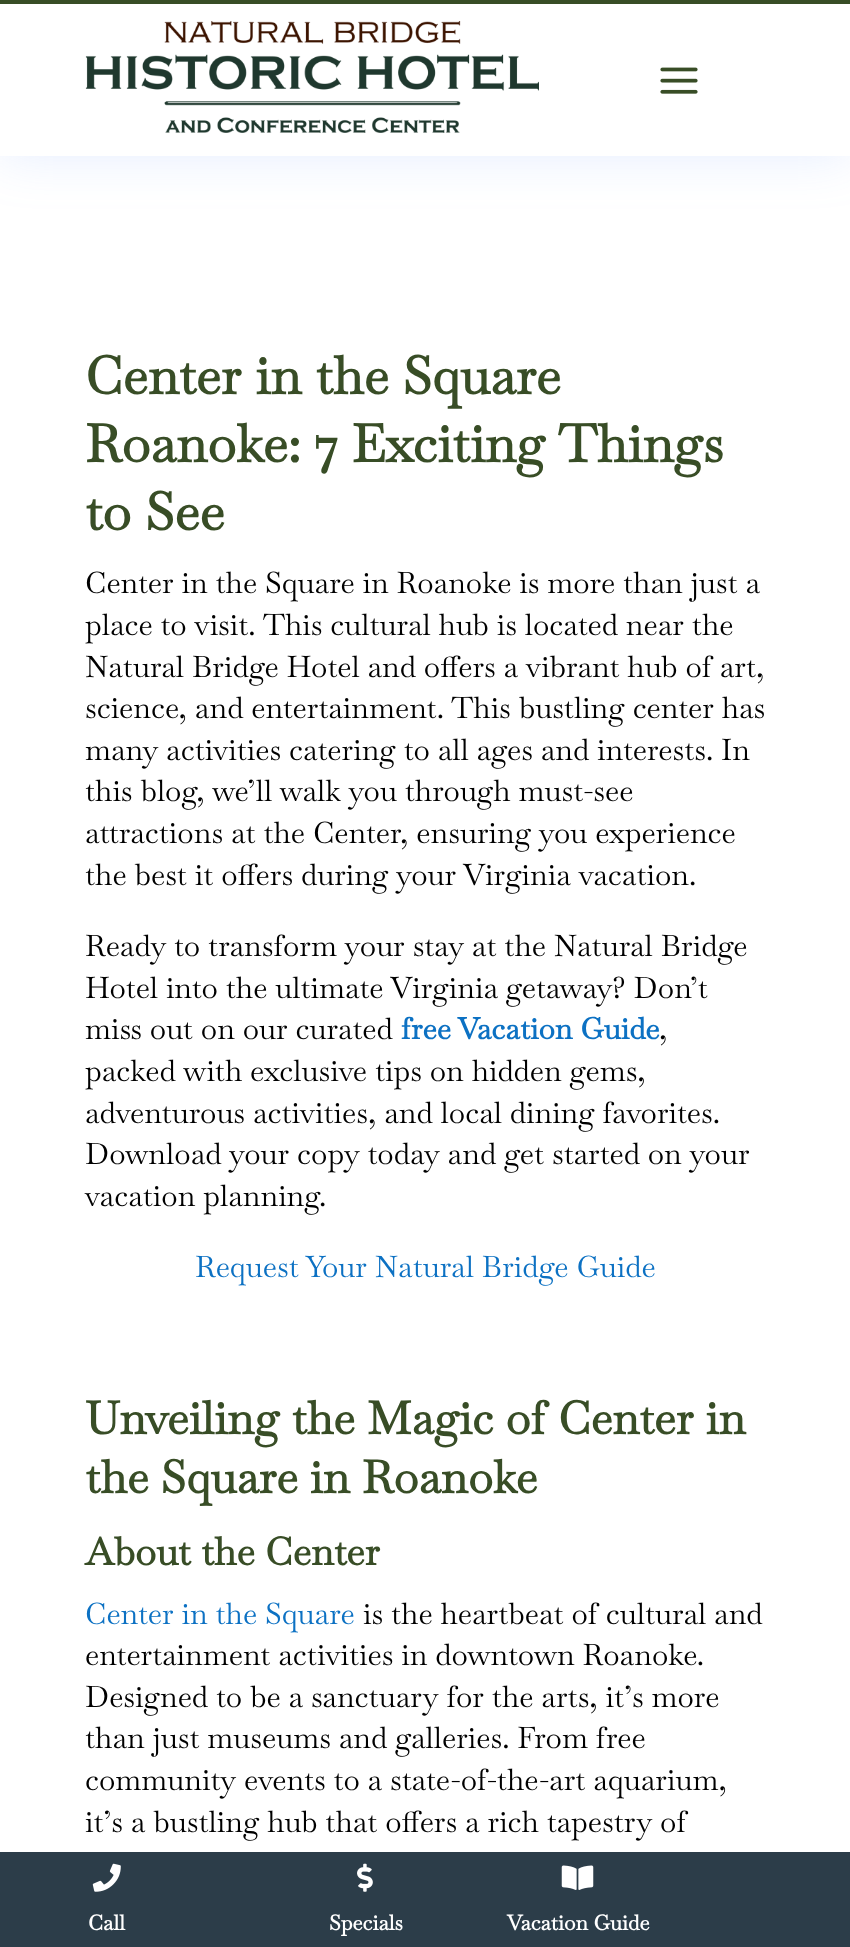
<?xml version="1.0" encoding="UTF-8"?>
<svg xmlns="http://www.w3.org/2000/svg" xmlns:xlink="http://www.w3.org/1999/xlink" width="850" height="1947">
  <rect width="100%" height="100%" fill="#ffffff" />
  <rect width="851" height="156" fill="#6797ff" fill-opacity="0.17" filter="blur(26px)" />
  <rect y="4" width="850" height="152" fill="#ffffff" />
  <rect width="850" height="4" fill="#384d26" />
  <image x="85" y="21" width="454" height="112" xlink:href="image1.png" />
  <image x="660" y="67" width="38" height="27" xlink:href="image2.png" />
  <rect y="1852" width="850" height="95" fill="#2c3d49" />
  <image x="92" y="1863" width="29" height="29" xlink:href="image3.png" />
  <image x="357" y="1863" width="16" height="29" xlink:href="image4.png" />
  <image x="561" y="1865" width="33" height="25" xlink:href="image5.png" />
  <text x="85" y="394" style="font-family: Baskervville; font-size: 52.5px; font-weight: bold; fill: #384d26">Center in the Square</text>
  <text x="85" y="462" style="font-family: Baskervville; font-size: 52.5px; font-weight: bold; fill: #384d26">Roanoke: 7 Exciting Things</text>
  <text x="85" y="530" style="font-family: Baskervville; font-size: 52.5px; font-weight: bold; fill: #384d26">to See</text>
  <text x="85" y="593" style="font-family: Baskervville; font-size: 29.75px; fill: #000000">Center in the Square in Roanoke is more than just a</text>
  <text x="85" y="635" style="font-family: Baskervville; font-size: 29.75px; fill: #000000">place to visit. This cultural hub is located near the</text>
  <text x="85" y="677" style="font-family: Baskervville; font-size: 29.75px; fill: #000000">Natural Bridge Hotel and offers a vibrant hub of art,</text>
  <text x="85" y="718" style="font-family: Baskervville; font-size: 29.75px; fill: #000000">science, and entertainment. This bustling center has</text>
  <text x="85" y="760" style="font-family: Baskervville; font-size: 29.75px; fill: #000000">many activities catering to all ages and interests. In</text>
  <text x="85" y="801" style="font-family: Baskervville; font-size: 29.75px; fill: #000000">this blog, we’ll walk you through must-see</text>
  <text x="85" y="843" style="font-family: Baskervville; font-size: 29.75px; fill: #000000">attractions at the Center, ensuring you experience</text>
  <text x="85" y="885" style="font-family: Baskervville; font-size: 29.75px; fill: #000000">the best it offers during your Virginia vacation.</text>
  <text x="85" y="956" style="font-family: Baskervville; font-size: 29.75px; fill: #000000">Ready to transform your stay at the Natural Bridge</text>
  <text x="85" y="998" style="font-family: Baskervville; font-size: 29.75px; fill: #000000">Hotel into the ultimate Virginia getaway? Don’t</text>
  <text x="85" y="1039" style="font-family: Baskervville; font-size: 29.75px; fill: #000000">miss out on our curated</text>
  <text x="401" y="1039" style="font-family: Baskervville; font-size: 29.75px; font-weight: bold; fill: #0c71c3">free Vacation Guide</text>
  <text x="659" y="1039" style="font-family: Baskervville; font-size: 29.75px; fill: #000000">,</text>
  <text x="85" y="1081" style="font-family: Baskervville; font-size: 29.75px; fill: #000000">packed with exclusive tips on hidden gems,</text>
  <text x="85" y="1123" style="font-family: Baskervville; font-size: 29.75px; fill: #000000">adventurous activities, and local dining favorites.</text>
  <text x="85" y="1164" style="font-family: Baskervville; font-size: 29.75px; fill: #000000">Download your copy today and get started on your</text>
  <text x="85" y="1206" style="font-family: Baskervville; font-size: 29.75px; fill: #000000">vacation planning.</text>
  <text x="195" y="1277" style="font-family: Baskervville; font-size: 29.75px; fill: #0c71c3">Request Your Natural Bridge Guide</text>
  <text x="85" y="1434" style="font-family: Baskervville; font-size: 45.5px; font-weight: bold; fill: #384d26">Unveiling the Magic of Center in</text>
  <text x="85" y="1493" style="font-family: Baskervville; font-size: 45.5px; font-weight: bold; fill: #384d26">the Square in Roanoke</text>
  <text x="85" y="1565" style="font-family: Baskervville; font-size: 38.5px; font-weight: bold; fill: #384d26">About the Center</text>
  <text x="85" y="1624" style="font-family: Baskervville; font-size: 29.75px; fill: #0c71c3">Center in the Square</text>
  <text x="363" y="1624" style="font-family: Baskervville; font-size: 29.75px; fill: #000000">is the heartbeat of cultural and</text>
  <text x="85" y="1665" style="font-family: Baskervville; font-size: 29.75px; fill: #000000">entertainment activities in downtown Roanoke.</text>
  <text x="85" y="1707" style="font-family: Baskervville; font-size: 29.75px; fill: #000000">Designed to be a sanctuary for the arts, it’s more</text>
  <text x="85" y="1748" style="font-family: Baskervville; font-size: 29.75px; fill: #000000">than just museums and galleries. From free</text>
  <text x="85" y="1790" style="font-family: Baskervville; font-size: 29.75px; fill: #000000">community events to a state-of-the-art aquarium,</text>
  <text x="85" y="1832" style="font-family: Baskervville; font-size: 29.75px; fill: #000000">it’s a bustling hub that offers a rich tapestry of</text>
  <text x="88" y="1930" style="font-family: Baskervville; font-size: 21px; font-weight: bold; fill: #ffffff">Call</text>
  <text x="329" y="1930" style="font-family: Baskervville; font-size: 21px; font-weight: bold; fill: #ffffff">Specials</text>
  <text x="507" y="1930" style="font-family: Baskervville; font-size: 21px; font-weight: bold; fill: #ffffff">Vacation Guide</text>
</svg>
